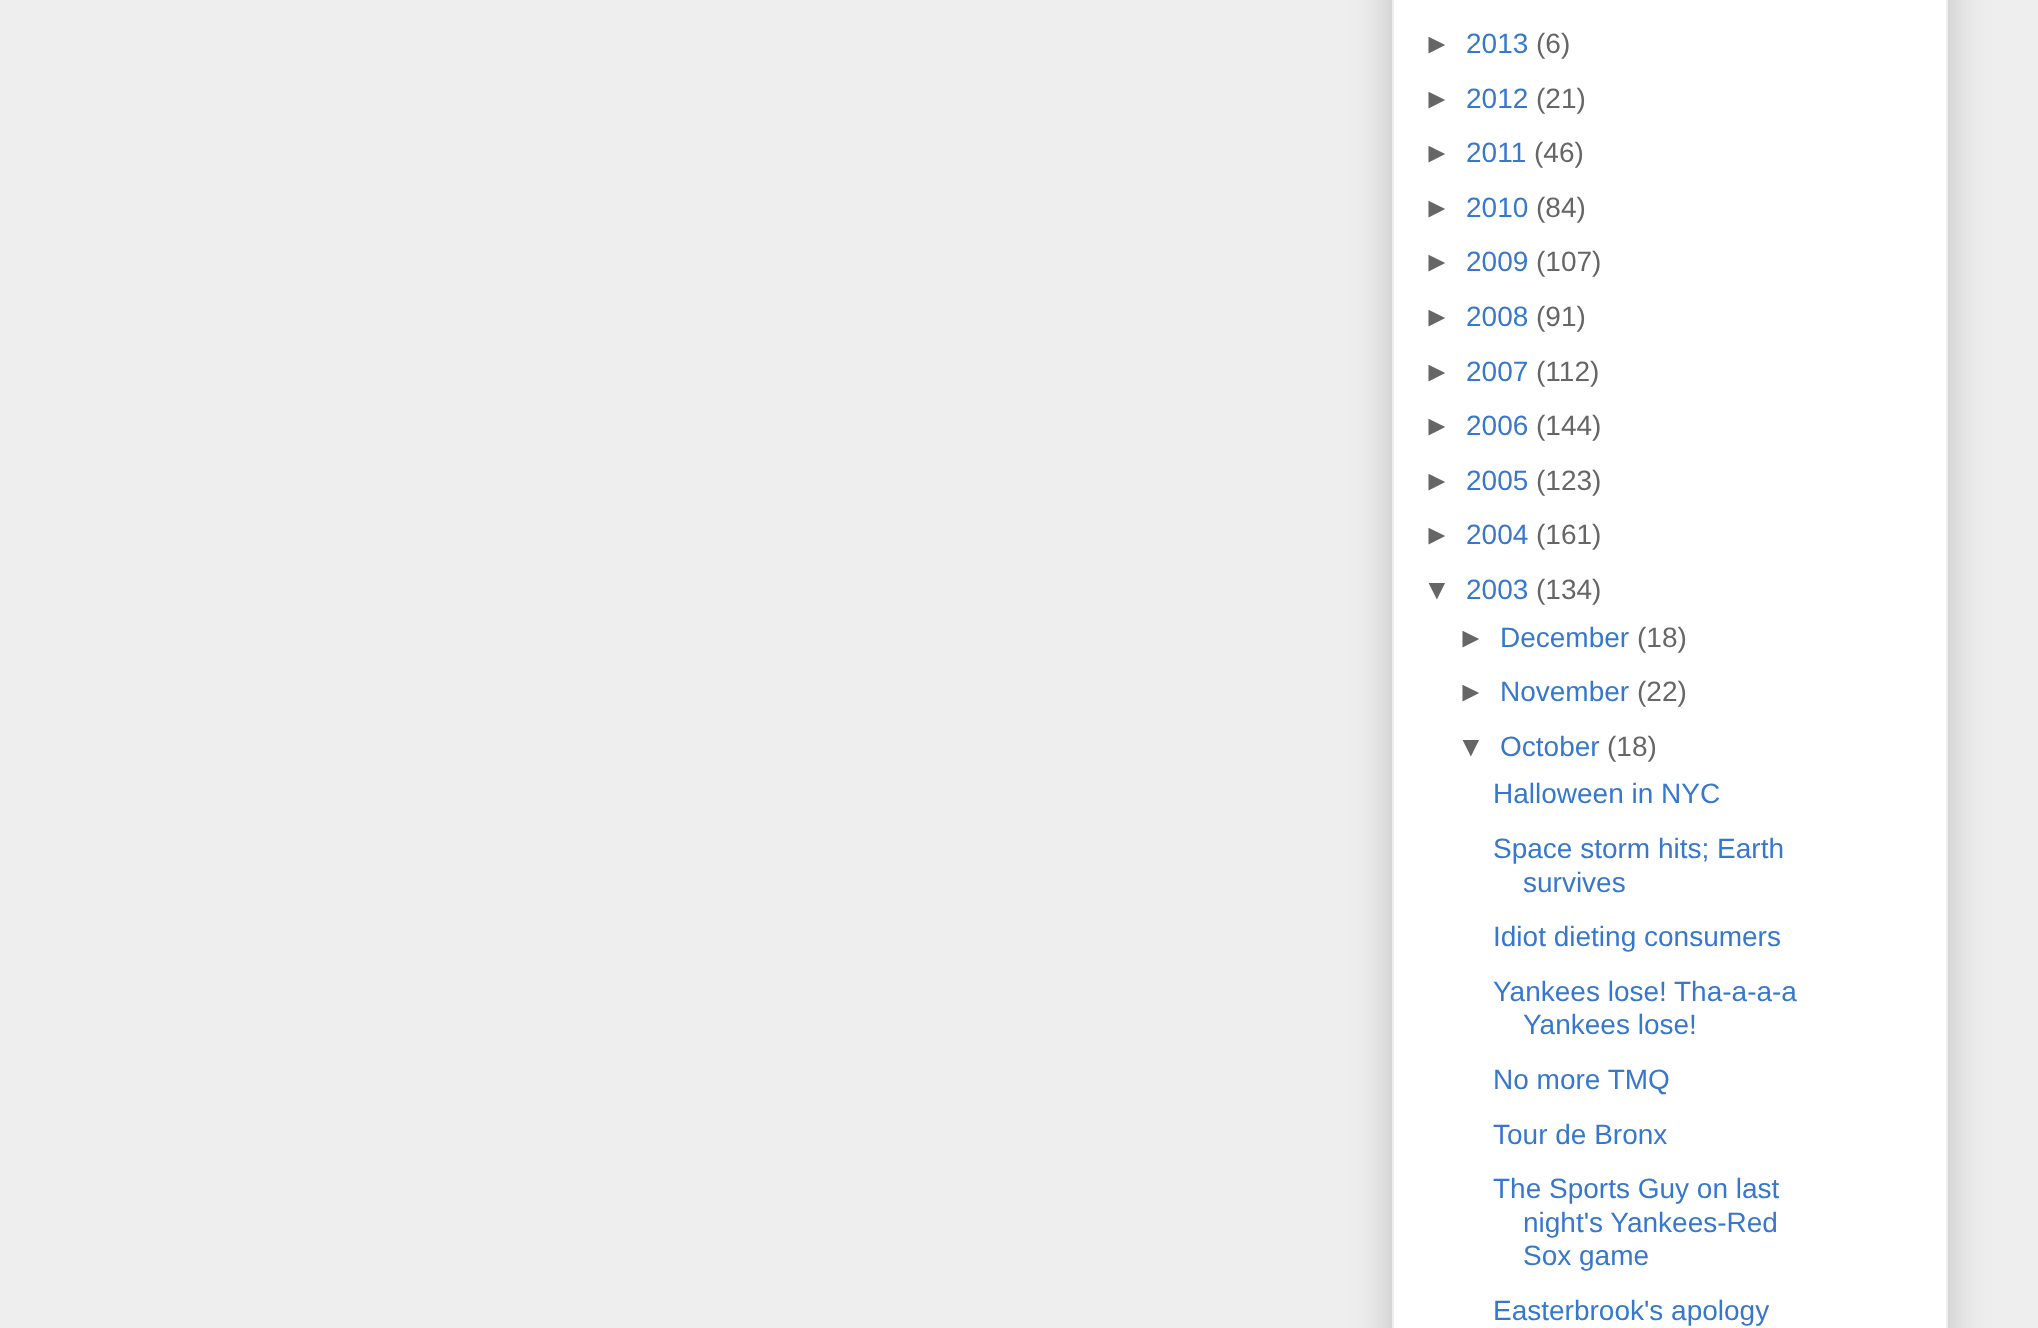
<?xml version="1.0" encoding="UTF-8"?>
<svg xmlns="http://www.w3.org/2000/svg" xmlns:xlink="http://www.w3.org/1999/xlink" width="2038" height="1328">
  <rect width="100%" height="100%" fill="#eeeeee" />
  <rect x="1392" y="-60" width="556" height="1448" fill="#000000" fill-opacity="0.2" filter="blur(20px)" />
  <rect x="1393" y="-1" width="554" height="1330" fill="#ffffff" stroke="#eeeeee" stroke-width="2" />
  <text x="1423" y="53" style="font-family: Liberation Sans; font-size: 28px; fill: #666666">►</text>
  <text x="1466" y="53" style="font-family: Liberation Sans; font-size: 28px; fill: #3778cd">2013</text>
  <text x="1536" y="53" style="font-family: Liberation Sans; font-size: 28px; fill: #666666">(6)</text>
  <text x="1423" y="108" style="font-family: Liberation Sans; font-size: 28px; fill: #666666">►</text>
  <text x="1466" y="108" style="font-family: Liberation Sans; font-size: 28px; fill: #3778cd">2012</text>
  <text x="1536" y="108" style="font-family: Liberation Sans; font-size: 28px; fill: #666666">(21)</text>
  <text x="1423" y="162" style="font-family: Liberation Sans; font-size: 28px; fill: #666666">►</text>
  <text x="1466" y="162" style="font-family: Liberation Sans; font-size: 28px; fill: #3778cd">2011</text>
  <text x="1534" y="162" style="font-family: Liberation Sans; font-size: 28px; fill: #666666">(46)</text>
  <text x="1423" y="217" style="font-family: Liberation Sans; font-size: 28px; fill: #666666">►</text>
  <text x="1466" y="217" style="font-family: Liberation Sans; font-size: 28px; fill: #3778cd">2010</text>
  <text x="1536" y="217" style="font-family: Liberation Sans; font-size: 28px; fill: #666666">(84)</text>
  <text x="1423" y="271" style="font-family: Liberation Sans; font-size: 28px; fill: #666666">►</text>
  <text x="1466" y="271" style="font-family: Liberation Sans; font-size: 28px; fill: #3778cd">2009</text>
  <text x="1536" y="271" style="font-family: Liberation Sans; font-size: 28px; fill: #666666">(107)</text>
  <text x="1423" y="326" style="font-family: Liberation Sans; font-size: 28px; fill: #666666">►</text>
  <text x="1466" y="326" style="font-family: Liberation Sans; font-size: 28px; fill: #3778cd">2008</text>
  <text x="1536" y="326" style="font-family: Liberation Sans; font-size: 28px; fill: #666666">(91)</text>
  <text x="1423" y="381" style="font-family: Liberation Sans; font-size: 28px; fill: #666666">►</text>
  <text x="1466" y="381" style="font-family: Liberation Sans; font-size: 28px; fill: #3778cd">2007</text>
  <text x="1536" y="381" style="font-family: Liberation Sans; font-size: 28px; fill: #666666">(112)</text>
  <text x="1423" y="435" style="font-family: Liberation Sans; font-size: 28px; fill: #666666">►</text>
  <text x="1466" y="435" style="font-family: Liberation Sans; font-size: 28px; fill: #3778cd">2006</text>
  <text x="1536" y="435" style="font-family: Liberation Sans; font-size: 28px; fill: #666666">(144)</text>
  <text x="1423" y="490" style="font-family: Liberation Sans; font-size: 28px; fill: #666666">►</text>
  <text x="1466" y="490" style="font-family: Liberation Sans; font-size: 28px; fill: #3778cd">2005</text>
  <text x="1536" y="490" style="font-family: Liberation Sans; font-size: 28px; fill: #666666">(123)</text>
  <text x="1423" y="544" style="font-family: Liberation Sans; font-size: 28px; fill: #666666">►</text>
  <text x="1466" y="544" style="font-family: Liberation Sans; font-size: 28px; fill: #3778cd">2004</text>
  <text x="1536" y="544" style="font-family: Liberation Sans; font-size: 28px; fill: #666666">(161)</text>
  <text x="1423" y="599" style="font-family: Liberation Sans; font-size: 28px; fill: #666666">▼</text>
  <text x="1466" y="599" style="font-family: Liberation Sans; font-size: 28px; fill: #3778cd">2003</text>
  <text x="1536" y="599" style="font-family: Liberation Sans; font-size: 28px; fill: #666666">(134)</text>
  <text x="1457" y="647" style="font-family: Liberation Sans; font-size: 28px; fill: #666666">►</text>
  <text x="1500" y="647" style="font-family: Liberation Sans; font-size: 28px; fill: #3778cd">December</text>
  <text x="1637" y="647" style="font-family: Liberation Sans; font-size: 28px; fill: #666666">(18)</text>
  <text x="1457" y="701" style="font-family: Liberation Sans; font-size: 28px; fill: #666666">►</text>
  <text x="1500" y="701" style="font-family: Liberation Sans; font-size: 28px; fill: #3778cd">November</text>
  <text x="1637" y="701" style="font-family: Liberation Sans; font-size: 28px; fill: #666666">(22)</text>
  <text x="1457" y="756" style="font-family: Liberation Sans; font-size: 28px; fill: #666666">▼</text>
  <text x="1500" y="756" style="font-family: Liberation Sans; font-size: 28px; fill: #3778cd">October</text>
  <text x="1607" y="756" style="font-family: Liberation Sans; font-size: 28px; fill: #666666">(18)</text>
  <text x="1493" y="803" style="font-family: Liberation Sans; font-size: 28px; fill: #3778cd">Halloween in NYC</text>
  <text x="1493" y="858" style="font-family: Liberation Sans; font-size: 28px; fill: #3778cd">Space storm hits; Earth</text>
  <text x="1523" y="892" style="font-family: Liberation Sans; font-size: 28px; fill: #3778cd">survives</text>
  <text x="1493" y="946" style="font-family: Liberation Sans; font-size: 28px; fill: #3778cd">Idiot dieting consumers</text>
  <text x="1493" y="1001" style="font-family: Liberation Sans; font-size: 28px; fill: #3778cd">Yankees lose!</text>
  <text x="1674" y="1001" style="font-family: Liberation Sans; font-size: 28px; fill: #3778cd">Tha-a-a-a</text>
  <text x="1523" y="1034" style="font-family: Liberation Sans; font-size: 28px; fill: #3778cd">Yankees lose!</text>
  <text x="1493" y="1089" style="font-family: Liberation Sans; font-size: 28px; fill: #3778cd">No more TMQ</text>
  <text x="1493" y="1144" style="font-family: Liberation Sans; font-size: 28px; fill: #3778cd">Tour de Bronx</text>
  <text x="1493" y="1198" style="font-family: Liberation Sans; font-size: 28px; fill: #3778cd">The Sports Guy on last</text>
  <text x="1523" y="1232" style="font-family: Liberation Sans; font-size: 28px; fill: #3778cd">night's Yankees-Red</text>
  <text x="1523" y="1265" style="font-family: Liberation Sans; font-size: 28px; fill: #3778cd">Sox game</text>
  <text x="1493" y="1320" style="font-family: Liberation Sans; font-size: 28px; fill: #3778cd">Easterbrook's apology</text>
</svg>
